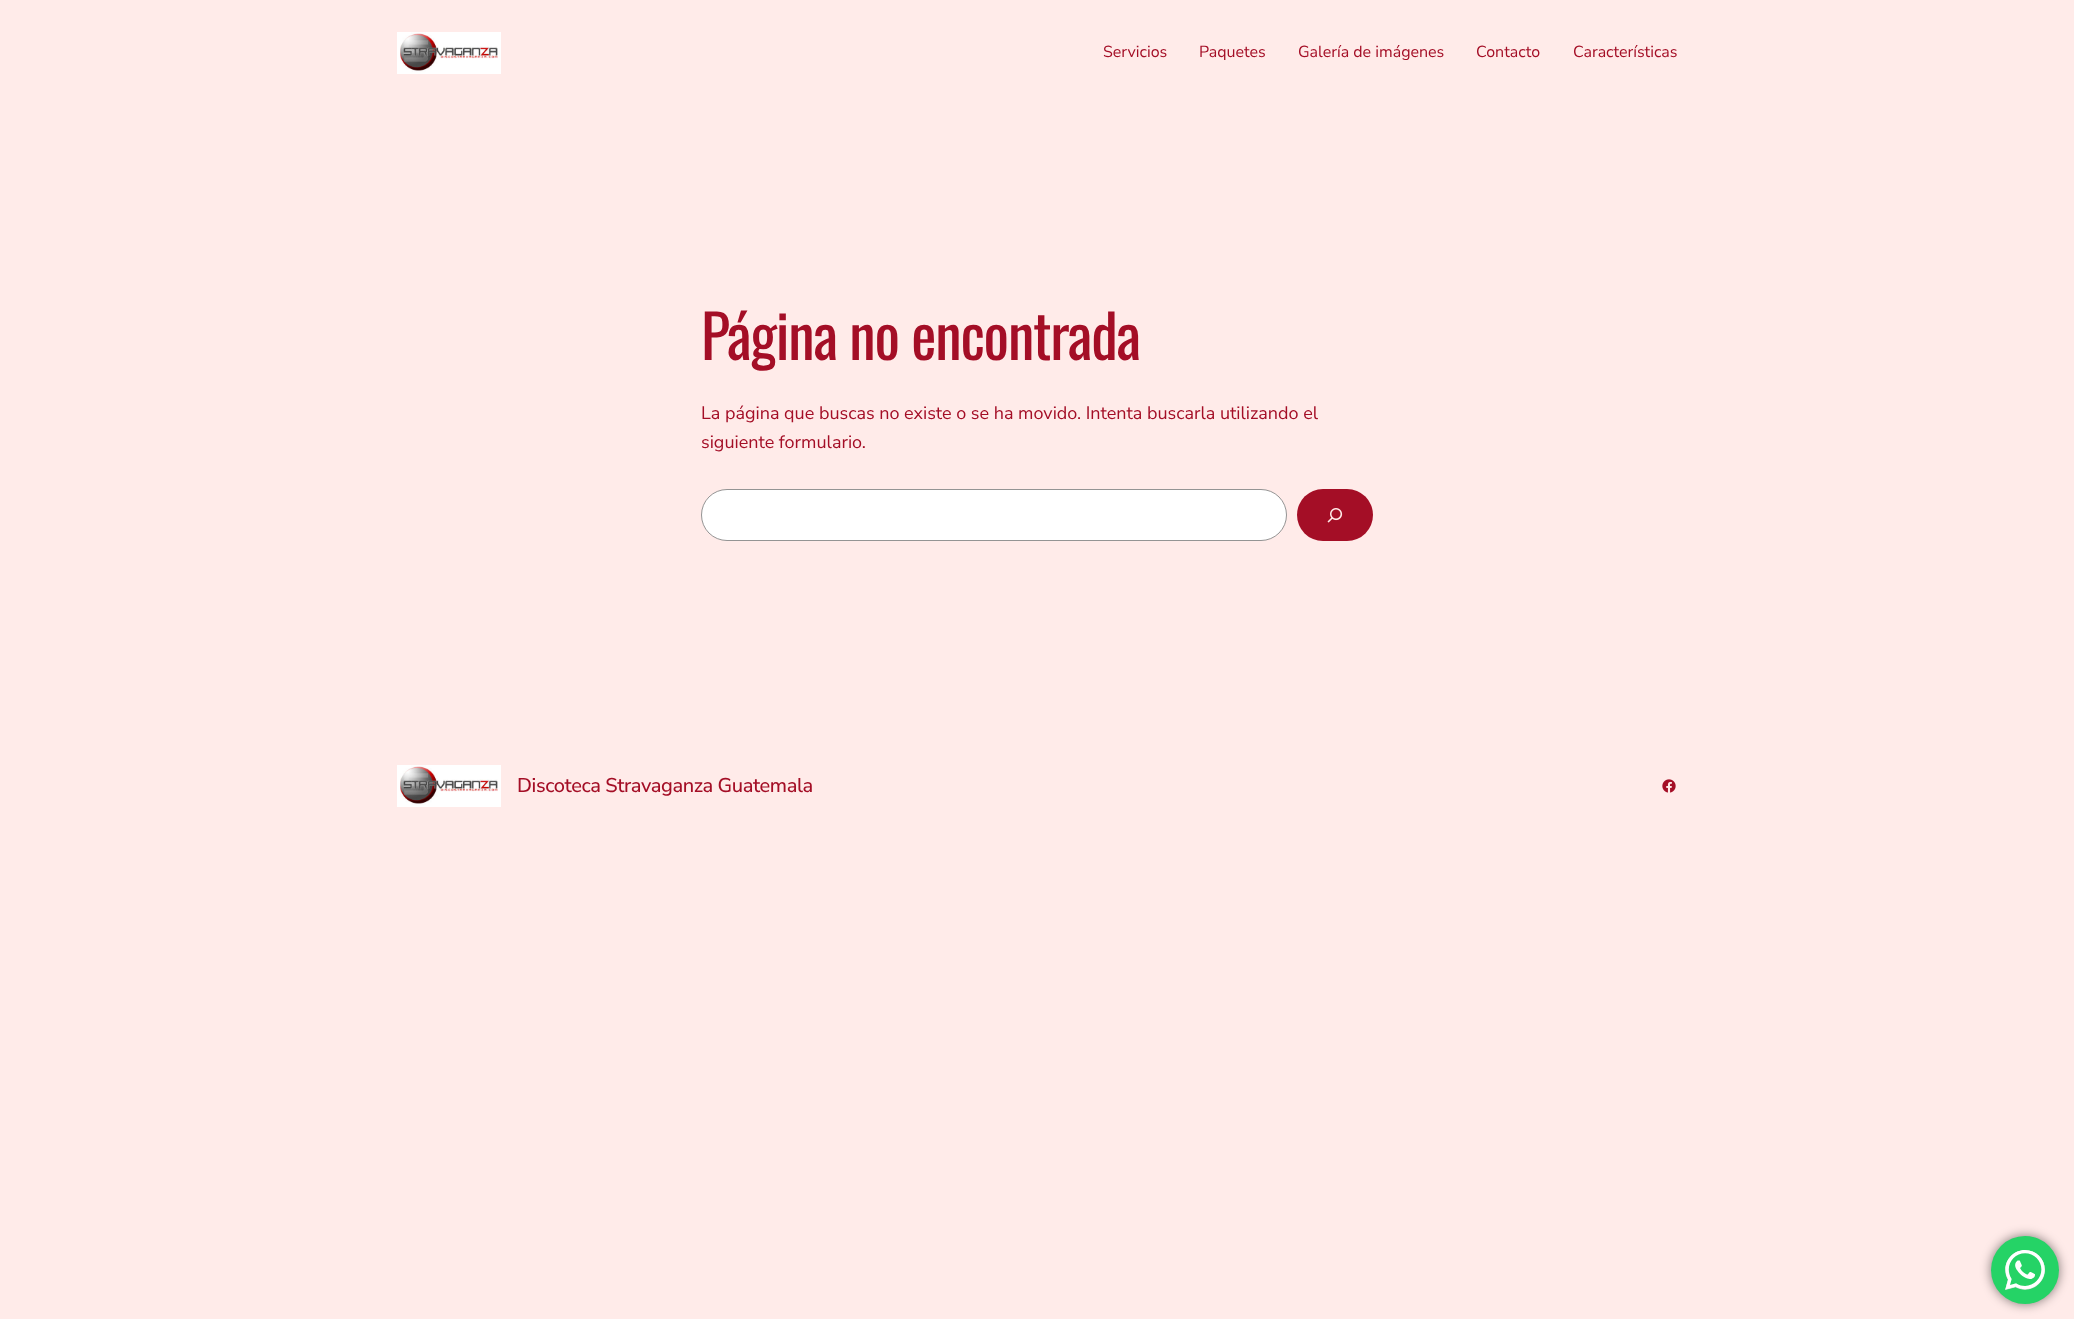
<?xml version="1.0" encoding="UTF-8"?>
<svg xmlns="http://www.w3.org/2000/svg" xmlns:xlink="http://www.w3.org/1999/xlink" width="2074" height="1319">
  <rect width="100%" height="100%" fill="#ffebe9" />
  <image x="397" y="32" width="104" height="42" xlink:href="image1.png" />
  <rect x="701.5" y="489.5" width="585" height="51" rx="25.5" fill="#ffffff" stroke="#949494" />
  <rect x="1297" y="489" width="76" height="52" rx="26" fill="#a40e26" />
  <image x="1327" y="508" width="16" height="15" xlink:href="image2.png" />
  <image x="397" y="765" width="104" height="42" xlink:href="image1.png" />
  <image x="1662" y="779" width="14" height="14" xlink:href="image3.png" />
  <rect x="1991" y="1236" width="68" height="68" rx="34" fill="#000000" fill-opacity="0.5" filter="blur(5.5px)" />
  <circle cx="2025" cy="1270" r="34" fill="#25d366" />
  <image x="2005" y="1250" width="40" height="40" xlink:href="image4.png" />
  <text x="1103" y="57" style="font-family: Nunito Sans; font-size: 16px; font-weight: 200; fill: #a40e26">Servicios</text>
  <text x="1199" y="57" style="font-family: Nunito Sans; font-size: 16px; font-weight: 200; fill: #a40e26">Paquetes</text>
  <text x="1298" y="57" style="font-family: Nunito Sans; font-size: 16px; font-weight: 200; fill: #a40e26">Galería de imágenes</text>
  <text x="1476" y="57" style="font-family: Nunito Sans; font-size: 16px; font-weight: 200; fill: #a40e26">Contacto</text>
  <text x="1573" y="57" style="font-family: Nunito Sans; font-size: 16px; font-weight: 200; fill: #a40e26">Características</text>
  <text x="701" y="360" style="font-family: Oswald; font-size: 60px; letter-spacing: -1.2px; fill: #a40e26">Página no encontrada</text>
  <text x="701" y="419" style="font-family: Nunito Sans; font-size: 18px; font-weight: 200; fill: #a40e26">La página que buscas no existe o se ha movido. Intenta buscarla utilizando el</text>
  <text x="701" y="448" style="font-family: Nunito Sans; font-size: 18px; font-weight: 200; fill: #a40e26">siguiente formulario.</text>
  <text x="517" y="792" style="font-family: Nunito Sans; font-size: 20px; font-weight: 500; letter-spacing: -0.4px; fill: #a40e26">Discoteca Stravaganza Guatemala</text>
</svg>
